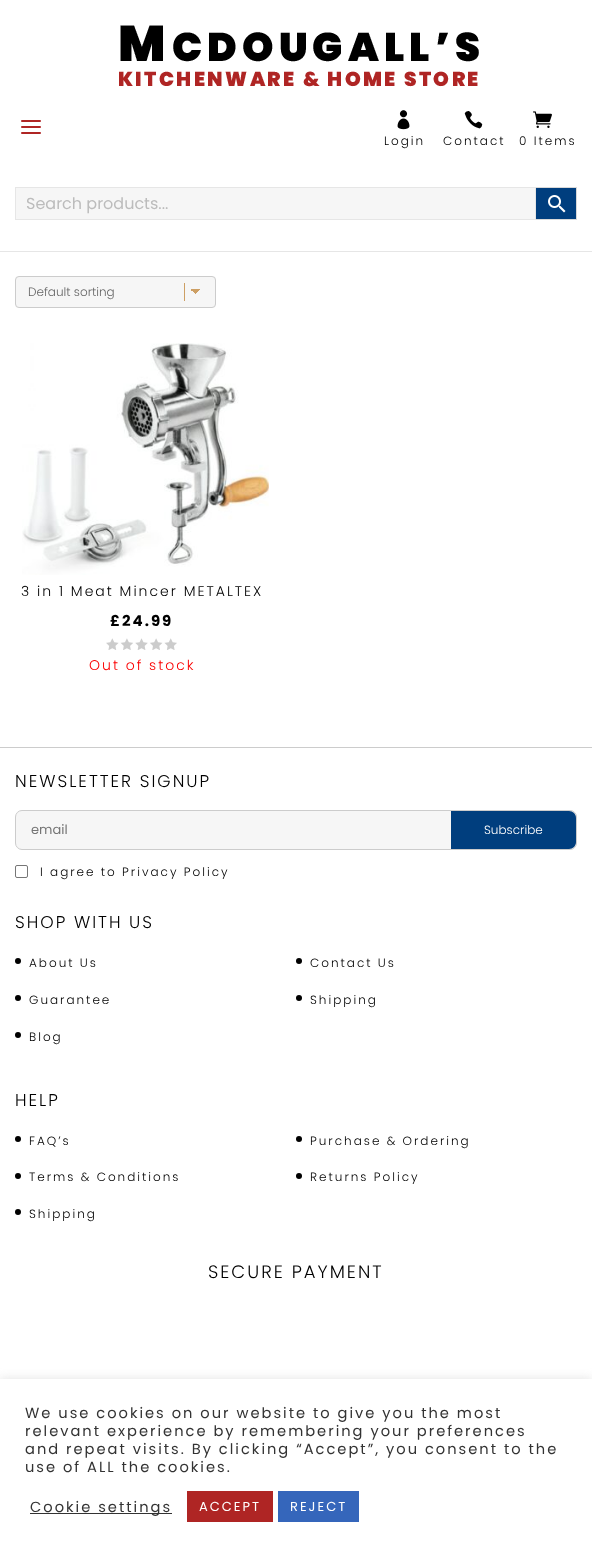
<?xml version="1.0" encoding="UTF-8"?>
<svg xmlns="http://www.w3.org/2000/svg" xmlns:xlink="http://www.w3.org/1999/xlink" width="592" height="1552">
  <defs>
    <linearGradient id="g1" gradientUnits="userSpaceOnUse" x1="195" y1="289" x2="190" y2="294"><stop offset="0.5" stop-color="#cd9f64" /><stop offset="0.5" stop-color="#f6f6f6" /></linearGradient>
    <linearGradient id="g2" gradientUnits="userSpaceOnUse" x1="200" y1="294" x2="195" y2="289"><stop offset="0.5" stop-color="#f6f6f6" /><stop offset="0.5" stop-color="#cd9f64" /></linearGradient>
  </defs>
  <rect width="100%" height="100%" fill="#ffffff" />
  <rect y="251" width="592" height="1" fill="#e6e6e6" />
  <image x="119" y="25" width="360" height="62" xlink:href="image1.png" />
  <image x="21" y="120" width="20" height="14" xlink:href="image2.png" />
  <image x="397" y="110" width="13" height="20" xlink:href="image3.png" />
  <image x="464" y="111" width="19" height="18" xlink:href="image4.png" />
  <image x="533" y="111" width="19" height="17" xlink:href="image5.png" />
  <rect x="535.5" y="187.5" width="41" height="32" fill="#003e7e" stroke="#d8d8d8" />
  <rect x="15.5" y="187.5" width="520" height="32" fill="#f6f6f6" stroke="#e6e6e6" />
  <image x="548" y="195" width="18" height="18" xlink:href="image6.png" />
  <rect x="15" y="276" width="201" height="32" rx="4" fill="#f6f6f6" />
  <rect x="184" y="283" width="1" height="18" fill="#cd9f64" />
  <rect x="190" y="289" width="5" height="4" fill="url(#g1)" />
  <rect x="195" y="289" width="5" height="5" fill="url(#g2)" />
  <rect x="15.5" y="276.5" width="200" height="31" rx="3.5" fill="none" stroke="#cccccc" />
  <image x="22" y="343" width="247" height="232" xlink:href="image7.png" />
  <image x="106" y="638" width="71" height="12" xlink:href="image8.png" />
  <rect y="747" width="592" height="1" fill="#cccccc" />
  <rect x="15.5" y="810.5" width="561" height="39" rx="6.5" fill="#f6f6f6" stroke="#cccccc" />
  <path d="M 451 811 h 118 c 4 0 7 3 7 7 v 24 c 0 4 -3 7 -7 7 h -118 z" fill="#003e7e" />
  <rect x="15.5" y="865.5" width="12" height="12" rx="1.5" fill="none" stroke="#767676" />
  <circle cx="18" cy="961" r="3" fill="#000000" />
  <circle cx="299" cy="961" r="3" fill="#000000" />
  <circle cx="18" cy="998" r="3" fill="#000000" />
  <circle cx="299" cy="998" r="3" fill="#000000" />
  <circle cx="18" cy="1035" r="3" fill="#000000" />
  <circle cx="18" cy="1139" r="3" fill="#000000" />
  <circle cx="299" cy="1139" r="3" fill="#000000" />
  <circle cx="18" cy="1176" r="3" fill="#000000" />
  <circle cx="299" cy="1176" r="3" fill="#000000" />
  <circle cx="18" cy="1212" r="3" fill="#000000" />
  <rect y="1378" width="592" height="173" fill="#acabab" fill-opacity="0.3" filter="blur(5px)" />
  <rect y="1379" width="592" height="173" fill="#ffffff" />
  <rect x="30" y="1513" width="142" height="1" fill="#333333" />
  <rect x="187" y="1491" width="86" height="31" fill="#af2524" />
  <rect x="278" y="1491" width="81" height="31" fill="#3566bb" />
  <text x="384" y="145" style="font-family: Poppins; font-size: 12px; font-weight: 300; letter-spacing: 2px; fill: #000000">Login</text>
  <text x="443" y="145" style="font-family: Poppins; font-size: 12px; font-weight: 300; letter-spacing: 2px; fill: #000000">Contact</text>
  <text x="519" y="145" style="font-family: Poppins; font-size: 12px; font-weight: 300; letter-spacing: 2px; fill: #000000">0 Items</text>
  <text x="26" y="209" style="font-family: Poppins; font-size: 16px; fill: #bcbcbc">Search products...</text>
  <text x="28" y="296" style="font-family: Poppins; font-size: 12px; font-weight: 300; fill: #666666">Default sorting</text>
  <text x="21" y="596" style="font-family: Poppins; font-size: 14px; font-weight: 300; letter-spacing: 2px; fill: #000000">3 in 1 Meat Mincer METALTEX</text>
  <text x="110" y="626" style="font-family: Poppins; font-size: 15px; font-weight: bold; letter-spacing: 2px; fill: #000000">£24.99</text>
  <text x="89" y="670" style="font-family: Poppins; font-size: 14px; font-weight: 300; letter-spacing: 2px; fill: #fb0000">Out of stock</text>
  <text x="15" y="787" style="font-family: Poppins; font-size: 17px; font-weight: 300; letter-spacing: 2px; fill: #000000">NEWSLETTER SIGNUP</text>
  <text x="31" y="834" style="font-family: Poppins; font-size: 13px; fill: #757575">email</text>
  <text x="484" y="834" style="font-family: Poppins; font-size: 12px; font-weight: 300; fill: #ffffff">Subscribe</text>
  <text x="40" y="876" style="font-family: Poppins; font-size: 12px; font-weight: 300; letter-spacing: 2px; fill: #000000">I agree to Privacy Policy</text>
  <text x="15" y="928" style="font-family: Poppins; font-size: 17px; font-weight: 300; letter-spacing: 2px; fill: #000000">SHOP WITH US</text>
  <text x="29" y="967" style="font-family: Poppins; font-size: 12px; font-weight: 300; letter-spacing: 2px; fill: #000000">About Us</text>
  <text x="310" y="967" style="font-family: Poppins; font-size: 12px; font-weight: 300; letter-spacing: 2px; fill: #000000">Contact Us</text>
  <text x="29" y="1004" style="font-family: Poppins; font-size: 12px; font-weight: 300; letter-spacing: 2px; fill: #000000">Guarantee</text>
  <text x="310" y="1004" style="font-family: Poppins; font-size: 12px; font-weight: 300; letter-spacing: 2px; fill: #000000">Shipping</text>
  <text x="29" y="1041" style="font-family: Poppins; font-size: 12px; font-weight: 300; letter-spacing: 2px; fill: #000000">Blog</text>
  <text x="15" y="1106" style="font-family: Poppins; font-size: 17px; font-weight: 300; letter-spacing: 2px; fill: #000000">HELP</text>
  <text x="29" y="1145" style="font-family: Poppins; font-size: 12px; font-weight: 300; letter-spacing: 2px; fill: #000000">FAQ’s</text>
  <text x="310" y="1145" style="font-family: Poppins; font-size: 12px; font-weight: 300; letter-spacing: 2px; fill: #000000">Purchase &amp; Ordering</text>
  <text x="29" y="1181" style="font-family: Poppins; font-size: 12px; font-weight: 300; letter-spacing: 2px; fill: #000000">Terms &amp; Conditions</text>
  <text x="310" y="1181" style="font-family: Poppins; font-size: 12px; font-weight: 300; letter-spacing: 2px; fill: #000000">Returns Policy</text>
  <text x="29" y="1218" style="font-family: Poppins; font-size: 12px; font-weight: 300; letter-spacing: 2px; fill: #000000">Shipping</text>
  <text x="208" y="1278" style="font-family: Poppins; font-size: 18px; font-weight: 300; letter-spacing: 2px; fill: #000000">SECURE PAYMENT</text>
  <text x="25" y="1418" style="font-family: Poppins; font-size: 14.65px; letter-spacing: 2px; fill: #333333">We use cookies on our website to give you the most</text>
  <text x="25" y="1436" style="font-family: Poppins; font-size: 14.65px; letter-spacing: 2px; fill: #333333">relevant experience by remembering your preferences</text>
  <text x="25" y="1454" style="font-family: Poppins; font-size: 14.65px; letter-spacing: 2px; fill: #333333">and repeat visits. By clicking “Accept”, you consent to the</text>
  <text x="25" y="1472" style="font-family: Poppins; font-size: 14.65px; letter-spacing: 2px; fill: #333333">use of ALL the cookies.</text>
  <text x="30" y="1512" style="font-family: Poppins; font-size: 14.65px; letter-spacing: 2px; fill: #333333">Cookie settings</text>
  <text x="199" y="1511" style="font-family: Poppins; font-size: 13px; letter-spacing: 2px; fill: #ffffff">ACCEPT</text>
  <text x="290" y="1511" style="font-family: Poppins; font-size: 13px; letter-spacing: 2px; fill: #ffffff">REJECT</text>
</svg>
